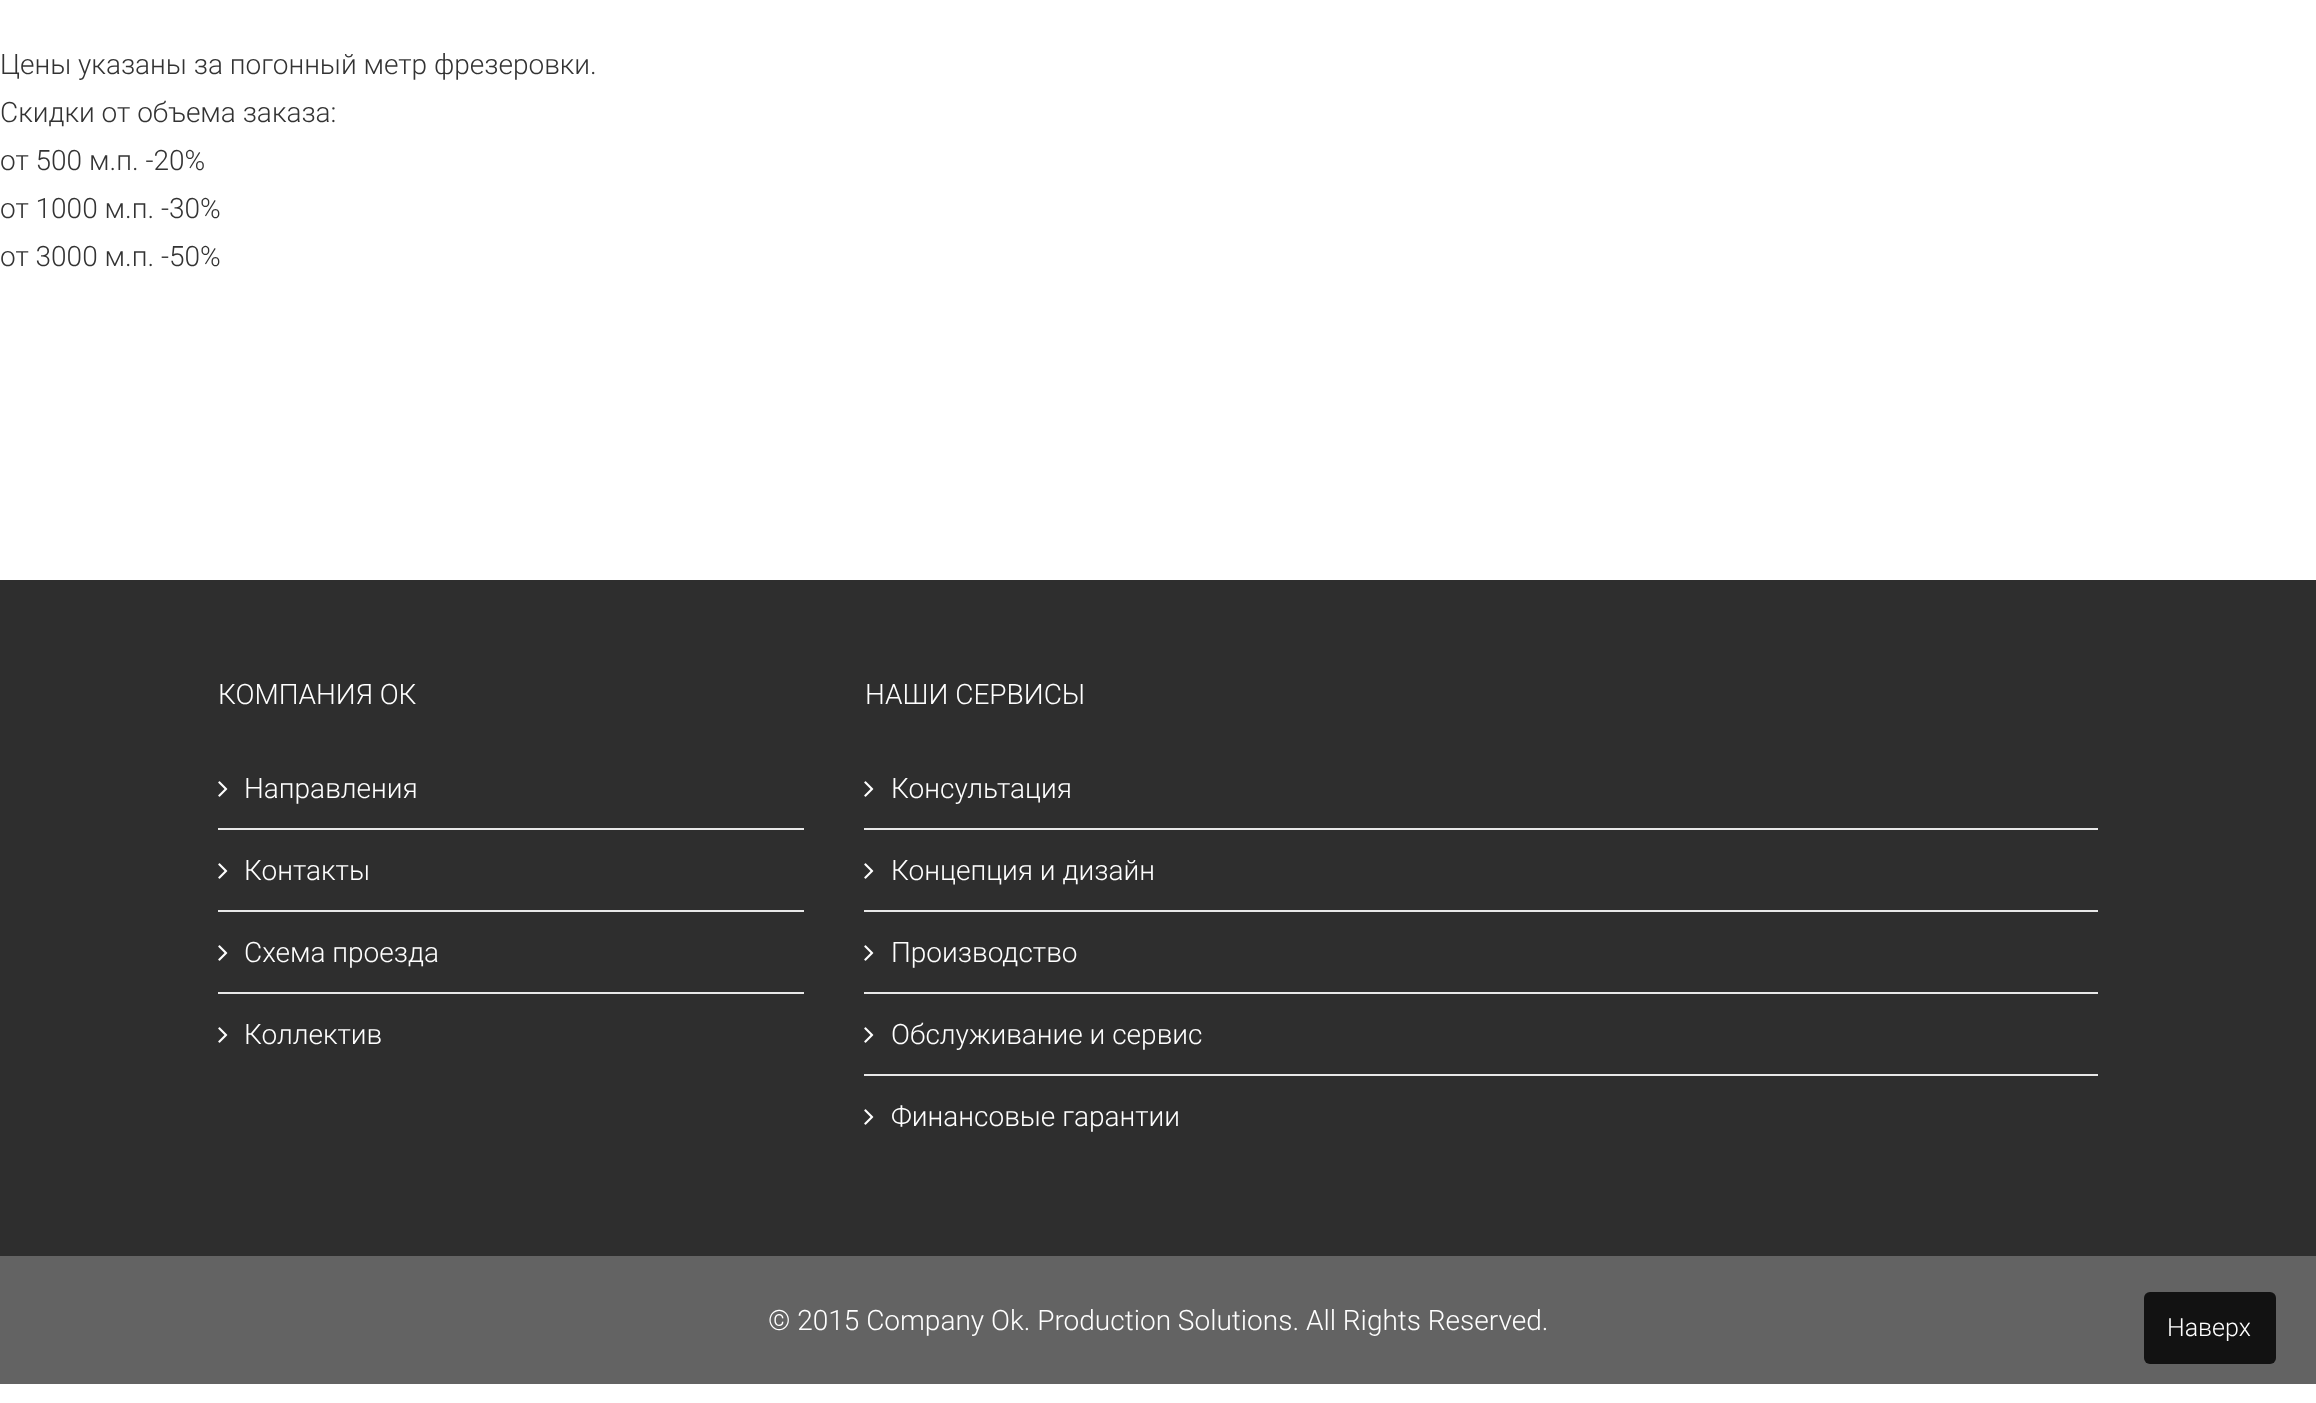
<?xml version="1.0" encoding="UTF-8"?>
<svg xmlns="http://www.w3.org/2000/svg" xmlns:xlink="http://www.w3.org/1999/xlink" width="2316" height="1403">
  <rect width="100%" height="100%" fill="#ffffff" />
  <rect y="580" width="2316" height="676" fill="#2e2e2e" />
  <rect x="218" y="828" width="586" height="2" fill="#e8e8e8" />
  <image x="218" y="781" width="10" height="16" xlink:href="image1.png" />
  <rect x="218" y="910" width="586" height="2" fill="#e8e8e8" />
  <image x="218" y="863" width="10" height="16" xlink:href="image1.png" />
  <rect x="218" y="992" width="586" height="2" fill="#e8e8e8" />
  <image x="218" y="945" width="10" height="16" xlink:href="image1.png" />
  <image x="218" y="1027" width="10" height="16" xlink:href="image1.png" />
  <rect x="864" y="828" width="1234" height="2" fill="#e8e8e8" />
  <image x="864" y="781" width="10" height="16" xlink:href="image1.png" />
  <rect x="864" y="910" width="1234" height="2" fill="#e8e8e8" />
  <image x="864" y="863" width="10" height="16" xlink:href="image1.png" />
  <rect x="864" y="992" width="1234" height="2" fill="#e8e8e8" />
  <image x="864" y="945" width="10" height="16" xlink:href="image1.png" />
  <rect x="864" y="1074" width="1234" height="2" fill="#e8e8e8" />
  <image x="864" y="1027" width="10" height="16" xlink:href="image1.png" />
  <image x="864" y="1109" width="10" height="16" xlink:href="image1.png" />
  <rect y="1256" width="2316" height="128" fill="#636363" />
  <rect x="2144" y="1292" width="132" height="72" rx="6" fill="#121212" />
  <text x="0" y="74" style="font-family: Roboto; font-size: 28px; font-weight: 300; fill: #333333">Цены указаны за погонный метр фрезеровки.</text>
  <text x="0" y="122" style="font-family: Roboto; font-size: 28px; font-weight: 300; fill: #333333">Скидки от объема заказа:</text>
  <text x="0" y="170" style="font-family: Roboto; font-size: 28px; font-weight: 300; fill: #333333">от 500 м.п. -20%</text>
  <text x="0" y="218" style="font-family: Roboto; font-size: 28px; font-weight: 300; fill: #333333">от 1000 м.п. -30%</text>
  <text x="0" y="266" style="font-family: Roboto; font-size: 28px; font-weight: 300; fill: #333333">от 3000 м.п. -50%</text>
  <text x="218" y="704" style="font-family: Roboto; font-size: 28px; font-weight: 300; fill: #ffffff">КОМПАНИЯ ОК</text>
  <text x="244" y="798" style="font-family: Roboto; font-size: 28px; font-weight: 300; fill: #ffffff">Направления</text>
  <text x="244" y="880" style="font-family: Roboto; font-size: 28px; font-weight: 300; fill: #ffffff">Контакты</text>
  <text x="244" y="962" style="font-family: Roboto; font-size: 28px; font-weight: 300; fill: #ffffff">Схема проезда</text>
  <text x="244" y="1044" style="font-family: Roboto; font-size: 28px; font-weight: 300; fill: #ffffff">Коллектив</text>
  <text x="865" y="704" style="font-family: Roboto; font-size: 28px; font-weight: 300; fill: #ffffff">НАШИ СЕРВИСЫ</text>
  <text x="891" y="798" style="font-family: Roboto; font-size: 28px; font-weight: 300; fill: #ffffff">Консультация</text>
  <text x="891" y="880" style="font-family: Roboto; font-size: 28px; font-weight: 300; fill: #ffffff">Концепция и дизайн</text>
  <text x="891" y="962" style="font-family: Roboto; font-size: 28px; font-weight: 300; fill: #ffffff">Производство</text>
  <text x="891" y="1044" style="font-family: Roboto; font-size: 28px; font-weight: 300; fill: #ffffff">Обслуживание и сервис</text>
  <text x="891" y="1126" style="font-family: Roboto; font-size: 28px; font-weight: 300; fill: #ffffff">Финансовые гарантии</text>
  <text x="768" y="1330" style="font-family: Roboto; font-size: 28px; font-weight: 300; fill: #ffffff">© 2015 Company Ok. Production Solutions. All Rights Reserved.</text>
  <text x="2167" y="1336" style="font-family: Roboto; font-size: 25px; font-weight: 300; fill: #ffffff">Наверх</text>
</svg>
